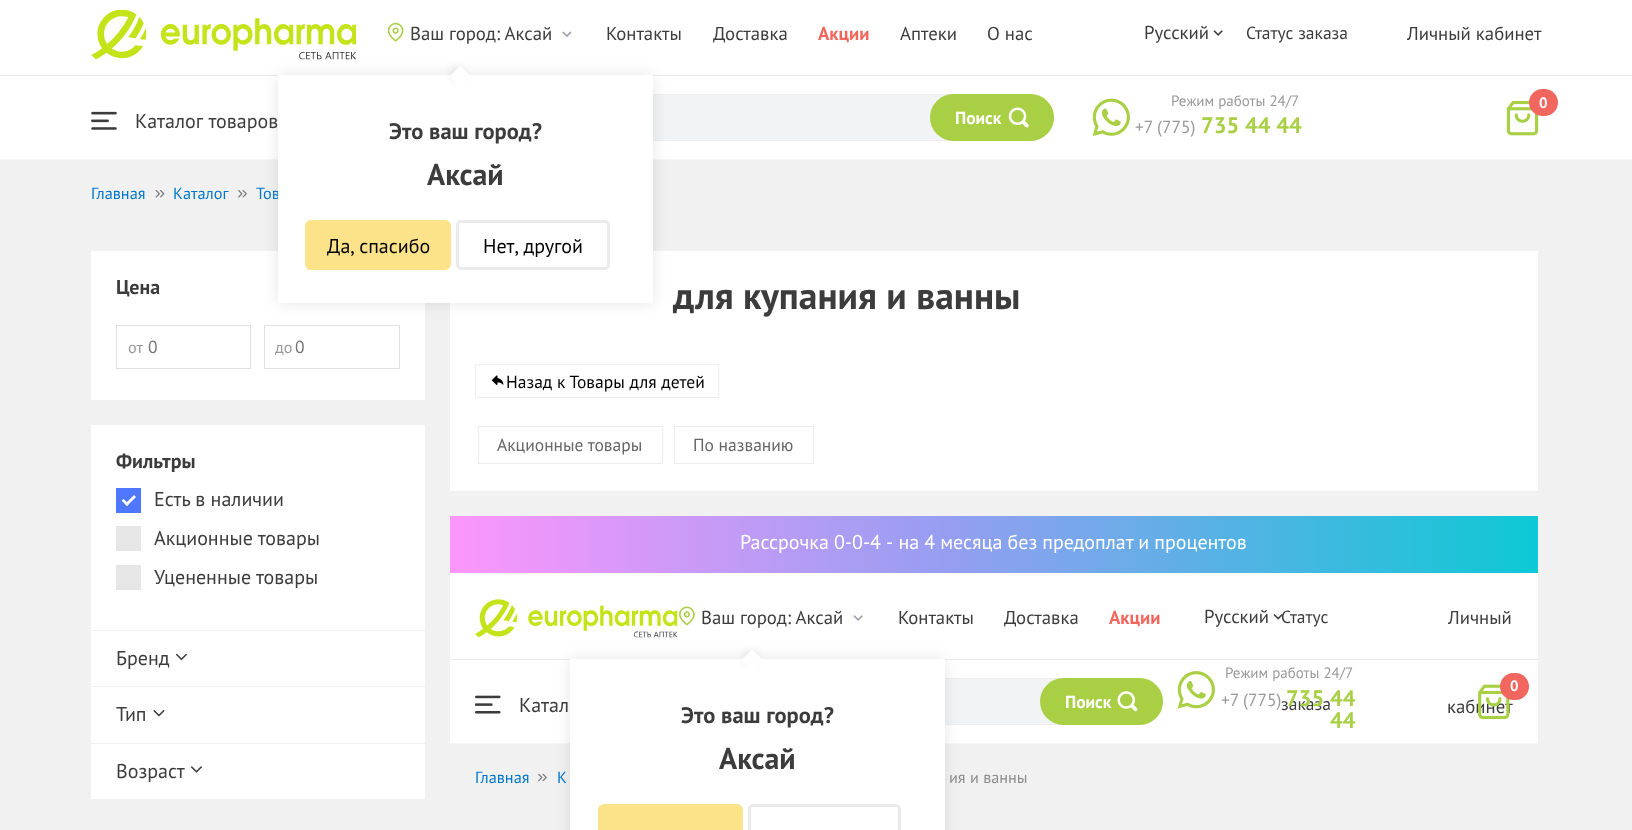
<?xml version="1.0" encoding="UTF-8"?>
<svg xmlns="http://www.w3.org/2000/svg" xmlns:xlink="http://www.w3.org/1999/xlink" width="1632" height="830">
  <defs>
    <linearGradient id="g1" gradientUnits="userSpaceOnUse" x1="450" y1="545" x2="1538" y2="544"><stop offset="0" stop-color="#fc96fc" /><stop offset="0.46" stop-color="#959ef1" /><stop offset="1" stop-color="#0dc9d5" /></linearGradient>
  </defs>
  <rect width="100%" height="100%" fill="#f1f1f1" />
  <rect width="1632" height="159" fill="#ffffff" />
  <rect y="75" width="1632" height="1" fill="#ebebeb" />
  <image x="91" y="10" width="265" height="50" xlink:href="image1.png" />
  <image x="387" y="22" width="17" height="20" xlink:href="image2.png" />
  <image x="562" y="31" width="10" height="7" xlink:href="image3.png" />
  <rect y="159" width="1632" height="1" fill="#f6f6f6" />
  <rect x="379.5" y="94.5" width="674" height="46" rx="23" fill="#f1f3f4" stroke="#eeeeee" />
  <rect x="91" y="251" width="334" height="149" fill="#ffffff" />
  <rect x="264.5" y="325.5" width="135" height="43" fill="none" stroke="#e0e0e0" />
  <rect x="450" y="251" width="1088" height="240" fill="#ffffff" />
  <rect x="278" y="75" width="375" height="228" fill="#000000" fill-opacity="0.1" filter="blur(7.5px)" />
  <image x="1213" y="30" width="10" height="6" xlink:href="image4.png" />
  <image x="1092" y="98" width="38" height="38" xlink:href="image5.png" />
  <image x="1506" y="100" width="33" height="36" xlink:href="image6.png" />
  <rect x="1529" y="89" width="29" height="27" rx="13.5" fill="#f1665e" />
  <image x="91" y="111" width="26" height="19" xlink:href="image7.png" />
  <rect x="930" y="94" width="124" height="47" rx="23.5" fill="#a9cf44" />
  <image x="1008" y="107" width="21" height="21" xlink:href="image8.png" />
  <image x="155" y="190" width="10" height="8" xlink:href="image9.png" />
  <image x="238" y="190" width="9" height="8" xlink:href="image10.png" />
  <rect x="116.5" y="325.5" width="134" height="43" fill="none" stroke="#e0e0e0" />
  <rect x="91" y="425" width="334" height="374" fill="#ffffff" />
  <rect x="116" y="488" width="25" height="25" fill="#4f78fe" />
  <path d="M 134 495 l 2 2 l -9 9 l -2 -2 z" fill="#ffffff" />
  <path d="M 123.5 499 l 5.5 5 l -2 2 l -5.5 -5.5 z" fill="#ffffff" />
  <rect x="116" y="526" width="25" height="25" fill="#e6e6e6" />
  <rect x="116" y="565" width="25" height="25" fill="#e6e6e6" />
  <rect x="91" y="630" width="334" height="1" fill="#f0f0f0" />
  <image x="175" y="653" width="12" height="8" xlink:href="image11.png" />
  <rect x="91" y="686" width="334" height="1" fill="#f0f0f0" />
  <image x="153" y="710" width="12" height="7" xlink:href="image12.png" />
  <rect x="91" y="743" width="334" height="1" fill="#f0f0f0" />
  <image x="190" y="766" width="12" height="7" xlink:href="image13.png" />
  <rect x="475.5" y="364.5" width="243" height="33" fill="none" stroke="#eeeeee" />
  <image x="491" y="375" width="13" height="11" xlink:href="image14.png" />
  <rect x="478.5" y="426.5" width="184" height="37" fill="none" stroke="#eeeeee" />
  <rect x="674.5" y="426.5" width="139" height="37" fill="none" stroke="#eeeeee" />
  <rect x="450" y="516" width="1088" height="57" fill="url(#g1)" />
  <rect x="450" y="573" width="1088" height="170" fill="#ffffff" />
  <rect x="450" y="659" width="1088" height="1" fill="#ebebeb" />
  <image x="475" y="599" width="203" height="39" xlink:href="image15.png" />
  <image x="679" y="606" width="16" height="20" xlink:href="image16.png" />
  <image x="853" y="615" width="10" height="6" xlink:href="image17.png" />
  <rect x="450" y="743" width="1088" height="1" fill="#f6f6f6" />
  <rect x="680.5" y="678.5" width="482" height="46" rx="23" fill="#f1f3f4" stroke="#eeeeee" />
  <image x="538" y="773" width="9" height="9" xlink:href="image23.png" />
  <rect x="570" y="659" width="375" height="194" fill="#000000" fill-opacity="0.1" filter="blur(7.5px)" />
  <rect x="570" y="659" width="375" height="171" fill="#ffffff" />
  <rect x="743" y="650" width="15" height="15" fill="#000000" fill-opacity="0.06" filter="blur(3px)" />
  <path d="M 752 649.5 l 11 10.5 l -11 10.5 l -10.5 -10.5 z" fill="#ffffff" />
  <rect x="599.5" y="805.5" width="142" height="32" rx="4.5" fill="#fce389" stroke="#fce389" stroke-width="3" />
  <rect x="749.5" y="805.5" width="150" height="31" rx="3.5" fill="none" stroke="#ebebeb" stroke-width="3" />
  <image x="1273" y="614" width="10" height="6" xlink:href="image18.png" />
  <image x="1177" y="671" width="38" height="38" xlink:href="image19.png" />
  <image x="474" y="695" width="27" height="19" xlink:href="image21.png" />
  <rect x="1040" y="678" width="123" height="47" rx="23.5" fill="#a9cf44" />
  <image x="1117" y="691" width="21" height="21" xlink:href="image22.png" />
  <text x="410" y="40" style="font-family: PT Sans; font-size: 18.75px; fill: #3c3c3c">Ваш город: Аксай</text>
  <text x="606" y="40" style="font-family: PT Sans; font-size: 18.75px; fill: #3c3c3c">Контакты</text>
  <text x="713" y="40" style="font-family: PT Sans; font-size: 18.75px; fill: #3c3c3c">Доставка</text>
  <text x="818" y="40" style="font-family: PT Sans; font-size: 18.75px; font-weight: bold; fill: #f1675e">Акции</text>
  <text x="900" y="40" style="font-family: PT Sans; font-size: 18.75px; fill: #3c3c3c">Аптеки</text>
  <text x="987" y="40" style="font-family: PT Sans; font-size: 18.75px; fill: #3c3c3c">О нас</text>
  <text x="1144" y="39" style="font-family: PT Sans; font-size: 18.75px; fill: #3c3c3c">Русский</text>
  <text x="1246" y="39" style="font-family: PT Sans; font-size: 17.5px; fill: #3c3c3c">Статус заказа</text>
  <text x="1407" y="40" style="font-family: PT Sans; font-size: 18.75px; fill: #3c3c3c">Личный кабинет</text>
  <text x="1171" y="106" style="font-family: PT Sans; font-size: 15px; fill: #999999">Режим работы 24/7</text>
  <text x="1135" y="133" word-spacing="-1" style="font-family: PT Sans; font-size: 17.5px; fill: #999999">+7 (775)</text>
  <text x="1201" y="133" style="font-family: PT Sans; font-size: 22.5px; font-weight: bold; fill: #a9cf44">735 44 44</text>
  <text x="1539" y="108" style="font-family: PT Sans; font-size: 15px; font-weight: bold; fill: #ffffff">0</text>
  <text x="135" y="128" word-spacing="1" style="font-family: PT Sans; font-size: 20px; fill: #3c3c3c">Каталог товаров</text>
  <text x="955" y="124" style="font-family: PT Sans; font-size: 17.5px; font-weight: bold; fill: #ffffff">Поиск</text>
  <text x="91" y="199" style="font-family: PT Sans; font-size: 16.25px; fill: #0077cc">Главная</text>
  <text x="173" y="199" style="font-family: PT Sans; font-size: 16.25px; fill: #0077cc">Каталог</text>
  <text x="256" y="199" style="font-family: PT Sans; font-size: 16.25px; fill: #0077cc">Тов</text>
  <rect x="278" y="75" width="375" height="228" fill="#ffffff" />
  <rect x="450" y="66" width="15" height="15" fill="#000000" fill-opacity="0.06" filter="blur(3px)" />
  <path d="M 460.5 65.5 l 10.5 11 l -10.5 10.5 l -10.5 -11 z" fill="#ffffff" />
  <rect x="457.5" y="221.5" width="151" height="47" rx="3.5" fill="none" stroke="#ebebeb" stroke-width="3" />
  <text x="483" y="253" word-spacing="-1" style="font-family: PT Sans; font-size: 20px; fill: #000000">Нет, другой</text>
  <rect x="306.5" y="221.5" width="143" height="47" rx="4.5" fill="#fce389" stroke="#fce389" stroke-width="3" />
  <text x="327" y="253" word-spacing="-1" style="font-family: PT Sans; font-size: 20px; fill: #000000">Да, спасибо</text>
  <text x="427" y="185" style="font-family: PT Sans; font-size: 30px; font-weight: bold; fill: #3c3c3c">Аксай</text>
  <text x="389" y="139" style="font-family: PT Sans; font-size: 22.5px; font-weight: bold; fill: #3c3c3c">Это ваш город?</text>
  <text x="116" y="294" style="font-family: PT Sans; font-size: 20px; font-weight: bold; fill: #3c3c3c">Цена</text>
  <text x="128" y="353" style="font-family: PT Sans; font-size: 16.25px; fill: #999999">от</text>
  <text x="148" y="353" style="font-family: PT Sans; font-size: 17.5px; fill: #757575">0</text>
  <text x="275" y="353" style="font-family: PT Sans; font-size: 16.25px; fill: #999999">до</text>
  <text x="295" y="353" style="font-family: PT Sans; font-size: 17.5px; fill: #757575">0</text>
  <text x="116" y="468" style="font-family: PT Sans; font-size: 20px; font-weight: bold; fill: #3c3c3c">Фильтры</text>
  <text x="154" y="506" style="font-family: PT Sans; font-size: 20px; fill: #3c3c3c">Есть в наличии</text>
  <text x="154" y="545" style="font-family: PT Sans; font-size: 20px; fill: #3c3c3c">Акционные товары</text>
  <text x="154" y="584" style="font-family: PT Sans; font-size: 20px; fill: #3c3c3c">Уцененные товары</text>
  <text x="116" y="665" style="font-family: PT Sans; font-size: 20px; fill: #3c3c3c">Бренд</text>
  <text x="116" y="721" style="font-family: PT Sans; font-size: 20px; fill: #3c3c3c">Тип</text>
  <text x="116" y="778" style="font-family: PT Sans; font-size: 20px; fill: #3c3c3c">Возраст</text>
  <text x="673" y="309" style="font-family: PT Sans; font-size: 37.5px; font-weight: bold; fill: #3c3c3c">для купания и ванны</text>
  <text x="506" y="388" style="font-family: PT Sans; font-size: 17.5px; fill: #000000">Назад к Товары для детей</text>
  <text x="497" y="451" style="font-family: PT Sans; font-size: 17.5px; fill: #666666">Акционные товары</text>
  <text x="693" y="451" style="font-family: PT Sans; font-size: 17.5px; fill: #666666">По названию</text>
  <text x="740" y="549" word-spacing="-0.25" style="font-family: PT Sans; font-size: 20px; fill: #ffffff">Рассрочка 0-0-4 - на 4 месяца без предоплат и процентов</text>
  <text x="701" y="624" style="font-family: PT Sans; font-size: 18.75px; fill: #3c3c3c">Ваш город: Аксай</text>
  <text x="681" y="723" style="font-family: PT Sans; font-size: 22.5px; font-weight: bold; fill: #3c3c3c">Это ваш город?</text>
  <text x="719" y="769" style="font-family: PT Sans; font-size: 30px; font-weight: bold; fill: #3c3c3c">Аксай</text>
  <text x="898" y="624" style="font-family: PT Sans; font-size: 18.75px; fill: #3c3c3c">Контакты</text>
  <text x="1004" y="624" style="font-family: PT Sans; font-size: 18.75px; fill: #3c3c3c">Доставка</text>
  <text x="1109" y="624" style="font-family: PT Sans; font-size: 18.75px; font-weight: bold; fill: #f1675e">Акции</text>
  <text x="1204" y="623" style="font-family: PT Sans; font-size: 18.75px; fill: #3c3c3c">Русский</text>
  <text x="1281" y="623" style="font-family: PT Sans; font-size: 17.5px; fill: #3c3c3c">Статус</text>
  <text x="1281" y="710" style="font-family: PT Sans; font-size: 17.5px; fill: #3c3c3c">заказа</text>
  <text x="1448" y="624" style="font-family: PT Sans; font-size: 18.75px; fill: #3c3c3c">Личный</text>
  <text x="1447" y="713" style="font-family: PT Sans; font-size: 18.75px; fill: #3c3c3c">кабинет</text>
  <text x="1225" y="678" style="font-family: PT Sans; font-size: 15px; fill: #999999">Режим работы 24/7</text>
  <text x="1221" y="706" word-spacing="-1" style="font-family: PT Sans; font-size: 17.5px; fill: #999999">+7 (775)</text>
  <text x="1286" y="706" style="font-family: PT Sans; font-size: 22.5px; font-weight: bold; fill: #a9cf44">735 44</text>
  <text x="1330" y="728" style="font-family: PT Sans; font-size: 22.5px; font-weight: bold; fill: #a9cf44">44</text>
  <image x="1478" y="684" width="32" height="36" xlink:href="image20.png" />
  <rect x="1500" y="673" width="29" height="27" rx="13.5" fill="#f1665e" />
  <text x="1510" y="691" style="font-family: PT Sans; font-size: 15px; font-weight: bold; fill: #ffffff">0</text>
  <text x="519" y="712" word-spacing="1" style="font-family: PT Sans; font-size: 20px; fill: #3c3c3c">Катал</text>
  <text x="1065" y="708" style="font-family: PT Sans; font-size: 17.5px; font-weight: bold; fill: #ffffff">Поиск</text>
  <text x="475" y="783" style="font-family: PT Sans; font-size: 16.25px; fill: #0077cc">Главная</text>
  <text x="557" y="783" style="font-family: PT Sans; font-size: 16.25px; fill: #0077cc">К</text>
  <text x="949" y="783" style="font-family: PT Sans; font-size: 16.25px; fill: #8d8d8d">ия и ванны</text>
</svg>
